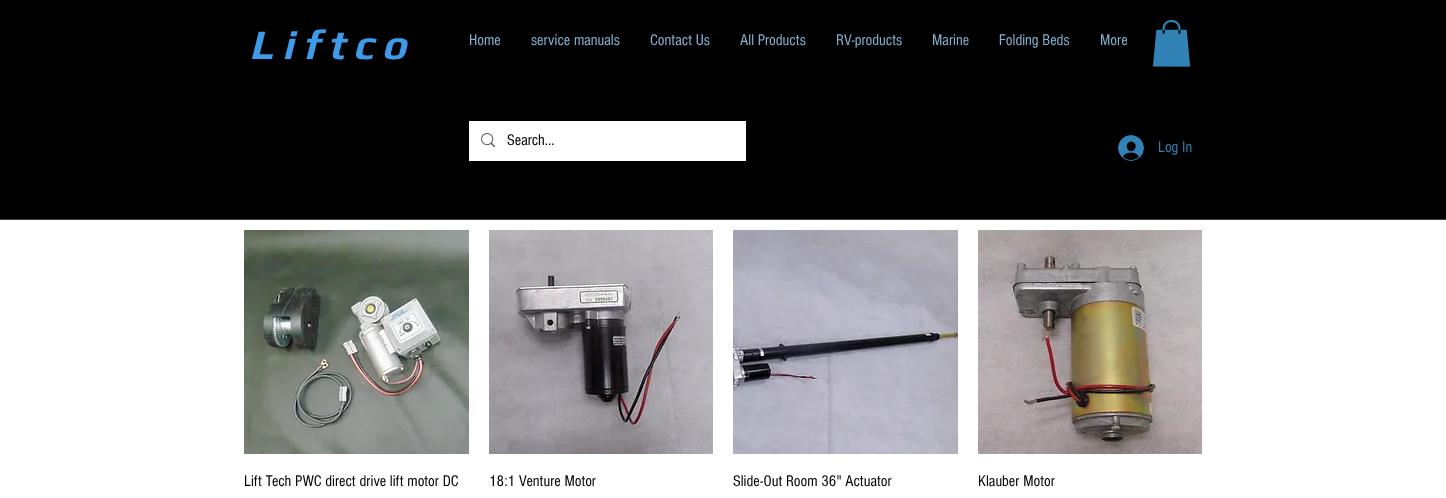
<?xml version="1.0" encoding="UTF-8"?>
<svg xmlns="http://www.w3.org/2000/svg" xmlns:xlink="http://www.w3.org/1999/xlink" width="1446" height="498">
  <rect width="100%" height="100%" fill="#ffffff" />
  <rect width="1446" height="219" fill="#000000" />
  <rect y="219" width="1446" height="1" fill="#3c4547" />
  <image x="1153" y="20" width="38" height="47" xlink:href="image1.png" />
  <rect x="469" y="121" width="277" height="40" fill="#ffffff" />
  <image x="481" y="133" width="14" height="15" xlink:href="image2.png" />
  <image x="1118" y="135" width="26" height="26" xlink:href="image3.png" />
  <image x="244" y="230" width="225" height="224" xlink:href="image4.png" />
  <image x="489" y="230" width="224" height="224" xlink:href="image5.png" />
  <image x="733" y="230" width="225" height="224" xlink:href="image6.png" />
  <image x="978" y="230" width="224" height="224" xlink:href="image7.png" />
  <text x="249" y="59" style="font-family: Play; font-size: 42px; font-weight: bold; font-style: italic; letter-spacing: 8.5px; fill: #3d9be9">Liftco</text>
  <text x="469" y="45" style="font-family: 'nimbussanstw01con'; font-size: 16px; fill: #83b1ce">Home</text>
  <text x="531" y="45" style="font-family: 'nimbussanstw01con'; font-size: 16px; fill: #83b1ce">service manuals</text>
  <text x="650" y="45" style="font-family: 'nimbussanstw01con'; font-size: 16px; fill: #83b1ce">Contact Us</text>
  <text x="740" y="45" style="font-family: 'nimbussanstw01con'; font-size: 16px; fill: #83b1ce">All Products</text>
  <text x="836" y="45" style="font-family: 'nimbussanstw01con'; font-size: 16px; fill: #83b1ce">RV-products</text>
  <text x="932" y="45" style="font-family: 'nimbussanstw01con'; font-size: 16px; fill: #83b1ce">Marine</text>
  <text x="999" y="45" style="font-family: 'nimbussanstw01con'; font-size: 16px; fill: #83b1ce">Folding Beds</text>
  <text x="1100" y="45" style="font-family: 'nimbussanstw01con'; font-size: 16px; fill: #83b1ce">More</text>
  <text x="507" y="145" style="font-family: 'nimbussanstw01con'; font-size: 16px; fill: #000000">Search...</text>
  <text x="1158" y="152" style="font-family: 'nimbussanstw01con'; font-size: 16px; fill: #3182b5">Log In</text>
  <text x="244" y="486" style="font-family: 'nimbussanstw01con'; font-size: 16px; fill: #000000">Lift Tech PWC direct drive lift motor DC</text>
  <text x="489" y="486" style="font-family: 'nimbussanstw01con'; font-size: 16px; fill: #000000">18:1 Venture Motor</text>
  <text x="733" y="486" style="font-family: 'nimbussanstw01con'; font-size: 16px; fill: #000000">Slide-Out Room 36" Actuator</text>
  <text x="978" y="486" style="font-family: 'nimbussanstw01con'; font-size: 16px; fill: #000000">Klauber Motor</text>
</svg>
